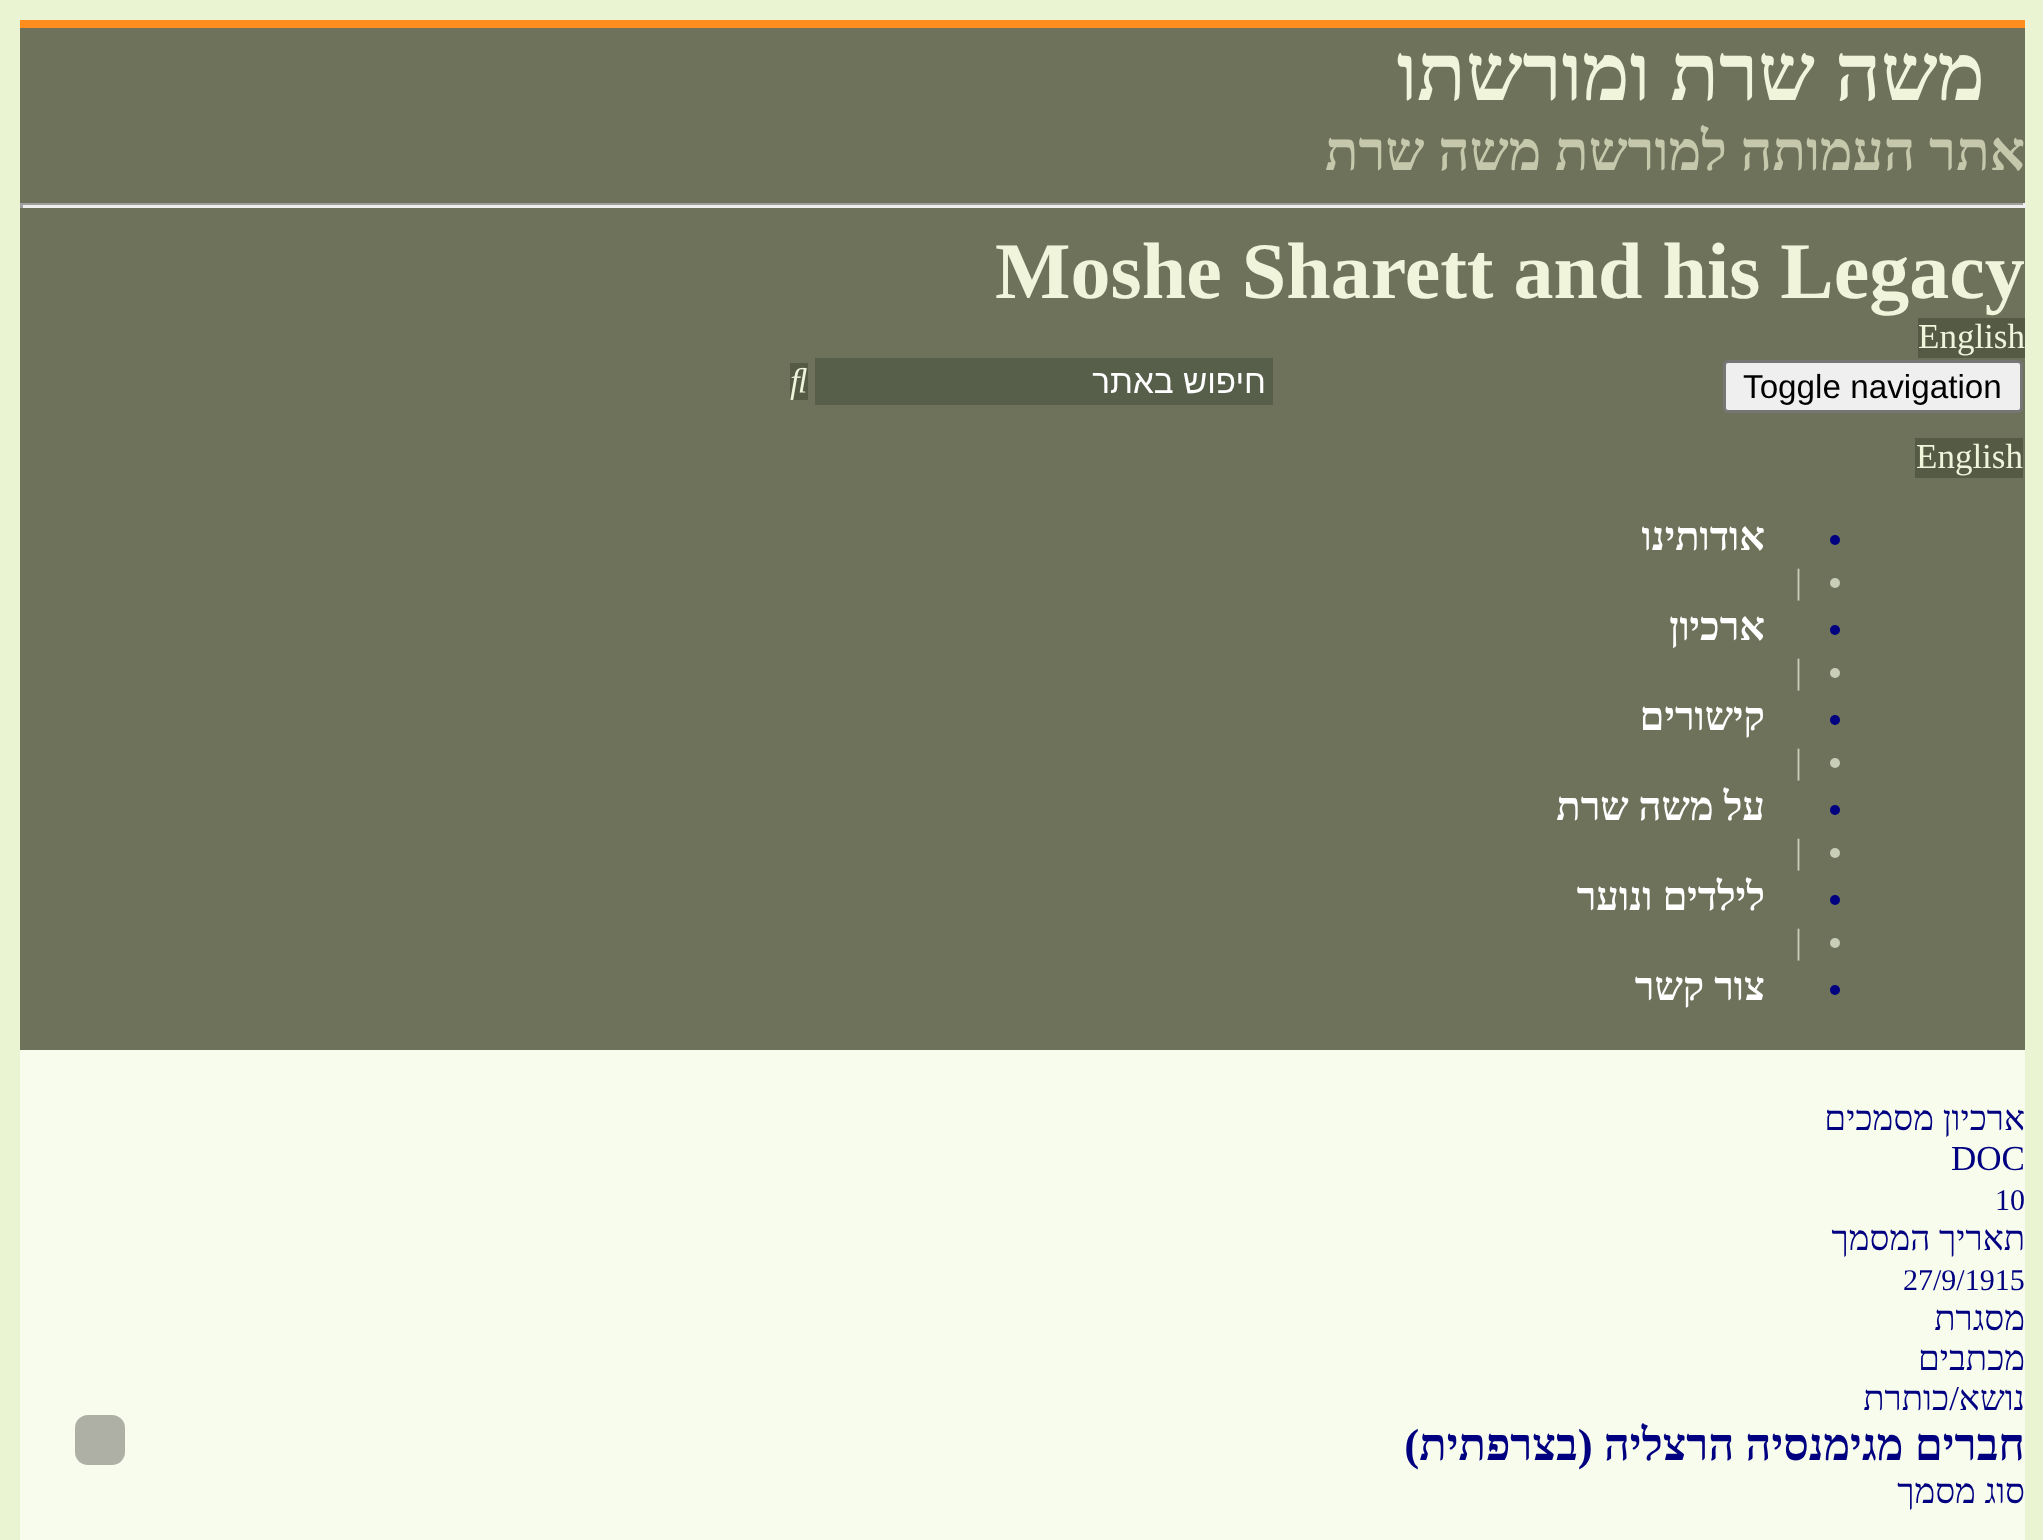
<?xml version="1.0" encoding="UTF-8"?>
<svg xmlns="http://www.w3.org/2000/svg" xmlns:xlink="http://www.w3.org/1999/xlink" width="2043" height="1540">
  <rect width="100%" height="100%" fill="#ebf4d2" />
  <rect x="20" y="28" width="2005" height="1022" fill="#6e725b" />
  <rect x="20" y="20" width="2005" height="8" fill="#ff8e1e" />
  <rect x="20" y="203" width="2005" height="2" fill="#9f9f9f" />
  <rect x="2023" y="203" width="3" height="5" fill="#eeeeee" />
  <rect x="20" y="205" width="2005" height="3" fill="#eeeeee" />
  <rect x="20" y="203" width="3" height="5" fill="#9f9f9f" />
  <rect x="1918" y="318" width="107" height="40" fill="#555a44" />
  <rect x="790" y="363" width="18" height="37" fill="#555a44" />
  <rect x="815" y="358" width="458" height="47" fill="#575f4a" />
  <image x="790" y="367" width="17" height="33" xlink:href="image1.png" />
  <rect x="1724.5" y="361.5" width="297" height="50" rx="3.5" fill="#efefef" stroke="#767676" stroke-width="3" />
  <rect x="1915" y="438" width="108" height="40" fill="#555a44" />
  <circle cx="1835" cy="540" r="5" fill="#000080" />
  <circle cx="1835" cy="583" r="5" fill="#c9ceb8" />
  <circle cx="1835" cy="630" r="5" fill="#000080" />
  <circle cx="1835" cy="673" r="5" fill="#c9ceb8" />
  <circle cx="1835" cy="720" r="5" fill="#000080" />
  <circle cx="1835" cy="763" r="5" fill="#c9ceb8" />
  <circle cx="1835" cy="810" r="5" fill="#000080" />
  <circle cx="1835" cy="853" r="5" fill="#c9ceb8" />
  <circle cx="1835" cy="900" r="5" fill="#000080" />
  <circle cx="1835" cy="943" r="5" fill="#c9ceb8" />
  <circle cx="1835" cy="990" r="5" fill="#000080" />
  <rect x="20" y="1050" width="2005" height="490" fill="#f8fced" />
  <rect x="75" y="1415" width="50" height="50" rx="13" fill="#aeb0a6" />
  <text x="1985" y="100" style="font-family: Liberation Serif; font-size: 80px; font-weight: bold; direction: rtl; fill: #eff4db">משה שרת ומורשתו</text>
  <text x="2025" y="170" style="font-family: Liberation Serif; font-size: 55px; font-weight: bold; direction: rtl; fill: #c5c8ab">אתר העמותה למורשת משה שרת</text>
  <text x="995" y="298" style="font-family: Liberation Serif; font-size: 80px; font-weight: bold; fill: #eff4db">Moshe Sharett and his Legacy</text>
  <text x="1918" y="348" style="font-family: Liberation Serif; font-size: 35px; fill: #eff4db">English</text>
  <text x="1266" y="393" style="font-family: Liberation Sans; font-size: 33.25px; direction: rtl; fill: #ffffff">חיפוש באתר</text>
  <text x="1743" y="398" style="font-family: Liberation Sans; font-size: 33.25px; fill: #000000">Toggle navigation</text>
  <text x="1916" y="468" style="font-family: Liberation Serif; font-size: 35px; fill: #eff4db">English</text>
  <text x="1765" y="550" style="font-family: Liberation Serif; font-size: 40px; font-weight: bold; direction: rtl; fill: #ffffff">אודותינו</text>
  <text x="1795" y="593" style="font-family: Liberation Serif; font-size: 35px; fill: #c9ceb8">|</text>
  <text x="1765" y="640" style="font-family: Liberation Serif; font-size: 40px; font-weight: bold; direction: rtl; fill: #ffffff">ארכיון</text>
  <text x="1795" y="683" style="font-family: Liberation Serif; font-size: 35px; fill: #c9ceb8">|</text>
  <text x="1765" y="730" style="font-family: Liberation Serif; font-size: 40px; font-weight: bold; direction: rtl; fill: #ffffff">קישורים</text>
  <text x="1795" y="773" style="font-family: Liberation Serif; font-size: 35px; fill: #c9ceb8">|</text>
  <text x="1765" y="820" style="font-family: Liberation Serif; font-size: 40px; font-weight: bold; direction: rtl; fill: #ffffff">על משה שרת</text>
  <text x="1795" y="863" style="font-family: Liberation Serif; font-size: 35px; fill: #c9ceb8">|</text>
  <text x="1765" y="910" style="font-family: Liberation Serif; font-size: 40px; font-weight: bold; direction: rtl; fill: #ffffff">לילדים ונוער</text>
  <text x="1795" y="953" style="font-family: Liberation Serif; font-size: 35px; fill: #c9ceb8">|</text>
  <text x="1765" y="1000" style="font-family: Liberation Serif; font-size: 40px; font-weight: bold; direction: rtl; fill: #ffffff">צור קשר</text>
  <text x="2025" y="1130" style="font-family: Liberation Serif; font-size: 35px; direction: rtl; fill: #000080">ארכיון מסמכים</text>
  <text x="1951" y="1170" style="font-family: Liberation Serif; font-size: 35px; fill: #000080">DOC</text>
  <text x="1995" y="1210" style="font-family: Liberation Serif; font-size: 30px; fill: #000080">10</text>
  <text x="2025" y="1250" style="font-family: Liberation Serif; font-size: 35px; direction: rtl; fill: #000080">תאריך המסמך</text>
  <text x="1903" y="1290" style="font-family: Liberation Serif; font-size: 30px; fill: #000080">27/9/1915</text>
  <text x="2025" y="1330" style="font-family: Liberation Serif; font-size: 35px; direction: rtl; fill: #000080">מסגרת</text>
  <text x="2025" y="1370" style="font-family: Liberation Serif; font-size: 35px; direction: rtl; fill: #000080">מכתבים</text>
  <text x="2025" y="1410" style="font-family: Liberation Serif; font-size: 35px; direction: rtl; fill: #000080">נושא/כותרת</text>
  <text x="2025" y="1460" style="font-family: Liberation Serif; font-size: 45px; font-weight: bold; direction: rtl; fill: #000080">חברים מגימנסיה הרצליה (בצרפתית)</text>
  <text x="2025" y="1503" style="font-family: Liberation Serif; font-size: 35px; direction: rtl; fill: #000080">סוג מסמך</text>
</svg>
